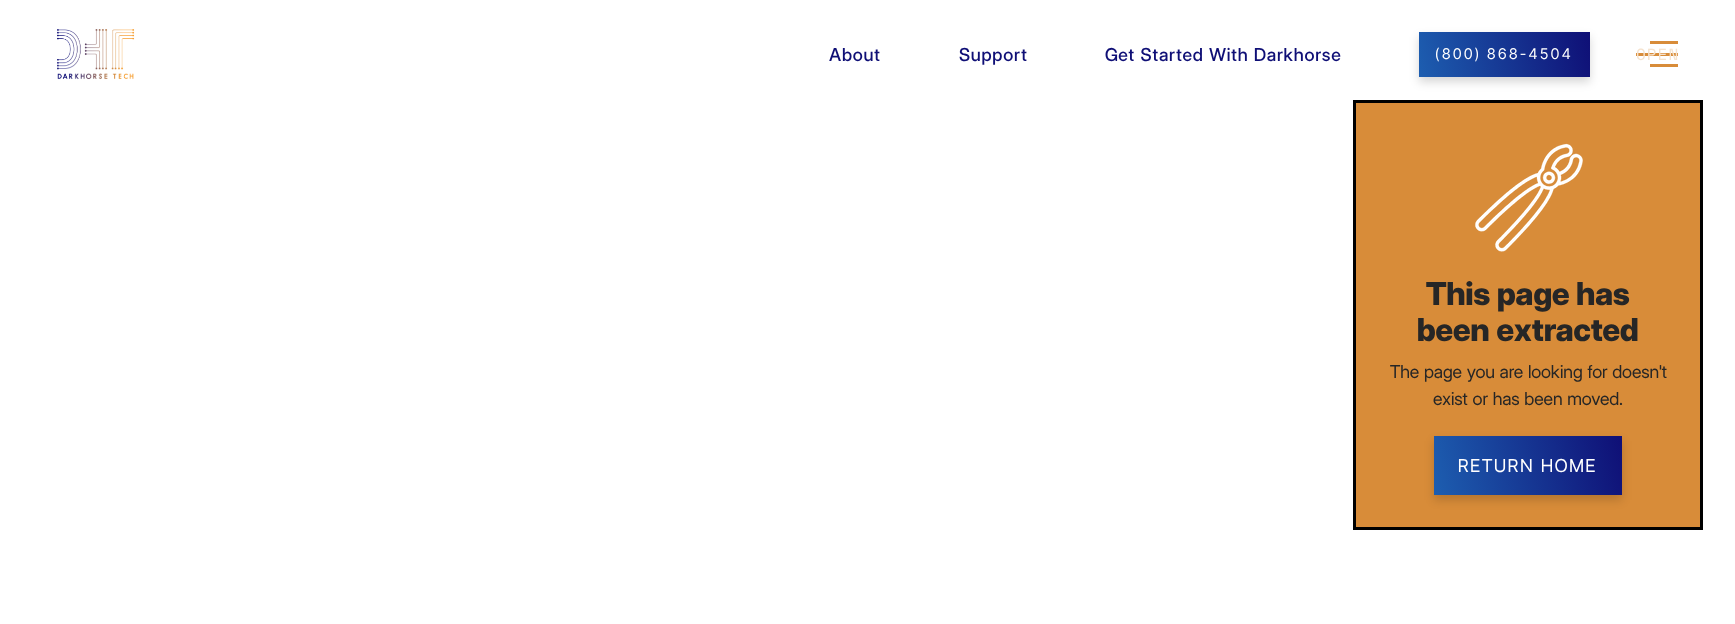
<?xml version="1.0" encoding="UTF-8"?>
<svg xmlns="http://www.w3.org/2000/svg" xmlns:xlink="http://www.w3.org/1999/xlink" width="1735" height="624">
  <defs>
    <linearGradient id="g1" gradientUnits="userSpaceOnUse" x1="1418" y1="74" x2="1591" y2="35"><stop offset="0" stop-color="#1d5eb0" /><stop offset="1" stop-color="#0f0f76" /></linearGradient>
    <linearGradient id="g2" gradientUnits="userSpaceOnUse" x1="1432" y1="488" x2="1624" y2="443"><stop offset="0" stop-color="#1d5eb0" /><stop offset="1" stop-color="#0f0f76" /></linearGradient>
  </defs>
  <rect width="100%" height="100%" fill="#ffffff" />
  <image x="57" y="29" width="78" height="51" xlink:href="image1.png" />
  <rect x="1419" y="37" width="171" height="45" fill="#000000" fill-opacity="0.16" filter="blur(5px)" />
  <rect x="1419" y="32" width="171" height="45" fill="url(#g1)" />
  <rect x="1650" y="41" width="28" height="3" fill="#d88c39" />
  <rect x="1636" y="53" width="42" height="3" fill="#d88c39" />
  <rect x="1650" y="64" width="28" height="3" fill="#d88c39" />
  <rect x="1354.5" y="101.5" width="347" height="427" fill="#d88c39" stroke="#000000" stroke-width="3" />
  <image x="1475" y="143" width="108" height="109" xlink:href="image2.png" />
  <rect x="1434" y="441" width="188" height="59" fill="#000000" fill-opacity="0.16" filter="blur(5px)" />
  <rect x="1434" y="436" width="188" height="59" fill="url(#g2)" />
  <text x="829" y="61" style="font-family: Inter Display; font-size: 18px; font-weight: 500; letter-spacing: 0.75px; fill: #0f0f76">About</text>
  <text x="959" y="61" style="font-family: Inter Display; font-size: 18px; font-weight: 500; letter-spacing: 0.75px; fill: #0f0f76">Support</text>
  <text x="1105" y="61" style="font-family: Inter Display; font-size: 18px; font-weight: 500; letter-spacing: 0.75px; fill: #0f0f76">Get Started With Darkhorse</text>
  <text x="1435" y="59" word-spacing="-1" style="font-family: Inter Display; font-size: 15px; letter-spacing: 2.5px; fill: #ffffff">(800) 868-4504</text>
  <text x="1636" y="60" style="font-family: Space Mono; font-size: 16px; letter-spacing: 1px; fill: #f5e2cd">OPEN</text>
  <text x="1426" y="305" style="font-family: Inter Display; font-size: 32px; font-weight: 800; fill: #262626">This page has</text>
  <text x="1417" y="341" style="font-family: Inter Display; font-size: 32px; font-weight: 800; fill: #262626">been extracted</text>
  <text x="1390" y="378" style="font-family: Inter Display; font-size: 18px; letter-spacing: -0.15px; fill: #262626">The page you are looking for doesn't</text>
  <text x="1433" y="405" style="font-family: Inter Display; font-size: 18px; letter-spacing: -0.15px; fill: #262626">exist or has been moved.</text>
  <text x="1458" y="472" style="font-family: Inter Display; font-size: 18px; letter-spacing: 1.75px; fill: #ffffff">RETURN HOME</text>
</svg>
